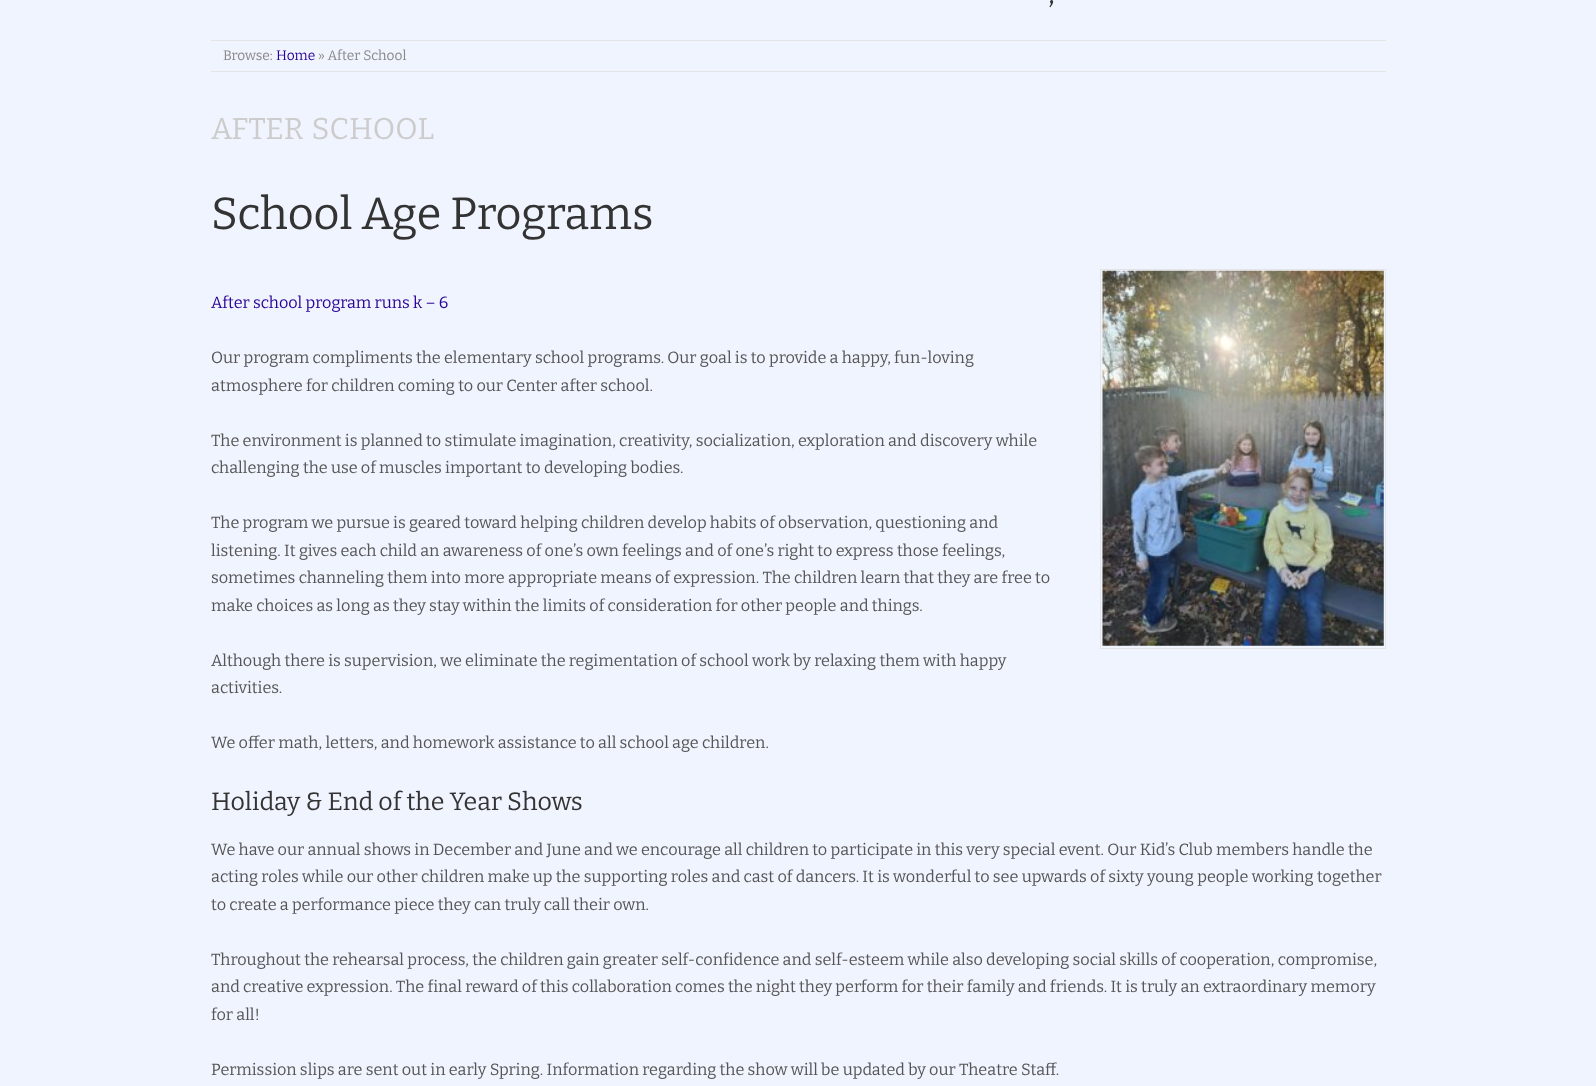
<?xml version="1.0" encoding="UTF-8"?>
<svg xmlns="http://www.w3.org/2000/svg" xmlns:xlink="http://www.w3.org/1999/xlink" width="1596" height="1086">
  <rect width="100%" height="100%" fill="#f0f4ff" />
  <rect x="211" y="40" width="1175" height="1" fill="#e5e5e5" />
  <rect x="211" y="71" width="1175" height="1" fill="#e5e5e5" />
  <rect x="1100.5" y="269.5" width="285" height="379" fill="none" stroke="#e5e5e5" />
  <image x="1102" y="270" width="282" height="376" xlink:href="image1.png" />
  <text x="1048" y="3" style="font-family: Bitter; font-size: 30px; font-weight: 100; fill: #333333">,</text>
  <text x="223" y="60" style="font-family: Bitter; font-size: 13.75px; font-weight: 100; fill: #888888">Browse:</text>
  <text x="276" y="60" style="font-family: Bitter; font-size: 13.75px; font-weight: 100; fill: #280294">Home</text>
  <text x="318" y="60" style="font-family: Bitter; font-size: 13.75px; font-weight: 100; fill: #888888">» After School</text>
  <text x="211" y="139" word-spacing="2" style="font-family: Bitter; font-size: 30px; font-weight: 100; fill: #cccccc">AFTER SCHOOL</text>
  <text x="211" y="229" style="font-family: Bitter; font-size: 45px; font-weight: 100; fill: #333333">School Age Programs</text>
  <text x="211" y="308" style="font-family: Bitter; font-size: 16.25px; font-weight: 100; fill: #280294">After school program runs k – 6</text>
  <text x="211" y="363" style="font-family: Bitter; font-size: 16.25px; font-weight: 100; fill: #555555">Our program compliments the elementary school programs. Our goal is to provide a happy, fun-loving</text>
  <text x="211" y="391" style="font-family: Bitter; font-size: 16.25px; font-weight: 100; fill: #555555">atmosphere for children coming to our Center after school.</text>
  <text x="211" y="446" style="font-family: Bitter; font-size: 16.25px; font-weight: 100; fill: #555555">The environment is planned to stimulate imagination, creativity, socialization, exploration and discovery while</text>
  <text x="211" y="473" style="font-family: Bitter; font-size: 16.25px; font-weight: 100; fill: #555555">challenging the use of muscles important to developing bodies.</text>
  <text x="211" y="528" style="font-family: Bitter; font-size: 16.25px; font-weight: 100; fill: #555555">The program we pursue is geared toward helping children develop habits of observation, questioning and</text>
  <text x="211" y="556" style="font-family: Bitter; font-size: 16.25px; font-weight: 100; fill: #555555">listening. It gives each child an awareness of one’s own feelings and of one’s right to express those feelings,</text>
  <text x="211" y="583" style="font-family: Bitter; font-size: 16.25px; font-weight: 100; fill: #555555">sometimes channeling them into more appropriate means of expression. The children learn that they are free to</text>
  <text x="211" y="611" style="font-family: Bitter; font-size: 16.25px; font-weight: 100; fill: #555555">make choices as long as they stay within the limits of consideration for other people and things.</text>
  <text x="211" y="666" style="font-family: Bitter; font-size: 16.25px; font-weight: 100; fill: #555555">Although there is supervision, we eliminate the regimentation of school work by relaxing them with happy</text>
  <text x="211" y="693" style="font-family: Bitter; font-size: 16.25px; font-weight: 100; fill: #555555">activities.</text>
  <text x="211" y="748" style="font-family: Bitter; font-size: 16.25px; font-weight: 100; fill: #555555">We offer math, letters, and homework assistance to all school age children.</text>
  <text x="211" y="810" style="font-family: Bitter; font-size: 25px; font-weight: 100; fill: #333333">Holiday &amp; End of the Year Shows</text>
  <text x="211" y="855" style="font-family: Bitter; font-size: 16.25px; font-weight: 100; fill: #555555">We have our annual shows in December and June and we encourage all children to participate in this very special event. Our Kid’s Club members handle the</text>
  <text x="211" y="882" style="font-family: Bitter; font-size: 16.25px; font-weight: 100; fill: #555555">acting roles while our other children make up the supporting roles and cast of dancers. It is wonderful to see upwards of sixty young people working together</text>
  <text x="211" y="910" style="font-family: Bitter; font-size: 16.25px; font-weight: 100; fill: #555555">to create a performance piece they can truly call their own.</text>
  <text x="211" y="965" style="font-family: Bitter; font-size: 16.25px; font-weight: 100; fill: #555555">Throughout the rehearsal process, the children gain greater self-confidence and self-esteem while also developing social skills of cooperation, compromise,</text>
  <text x="211" y="992" style="font-family: Bitter; font-size: 16.25px; font-weight: 100; fill: #555555">and creative expression. The final reward of this collaboration comes the night they perform for their family and friends. It is truly an extraordinary memory</text>
  <text x="211" y="1020" style="font-family: Bitter; font-size: 16.25px; font-weight: 100; fill: #555555">for all!</text>
  <text x="211" y="1075" style="font-family: Bitter; font-size: 16.25px; font-weight: 100; fill: #555555">Permission slips are sent out in early Spring. Information regarding the show will be updated by our Theatre Staff.</text>
</svg>
